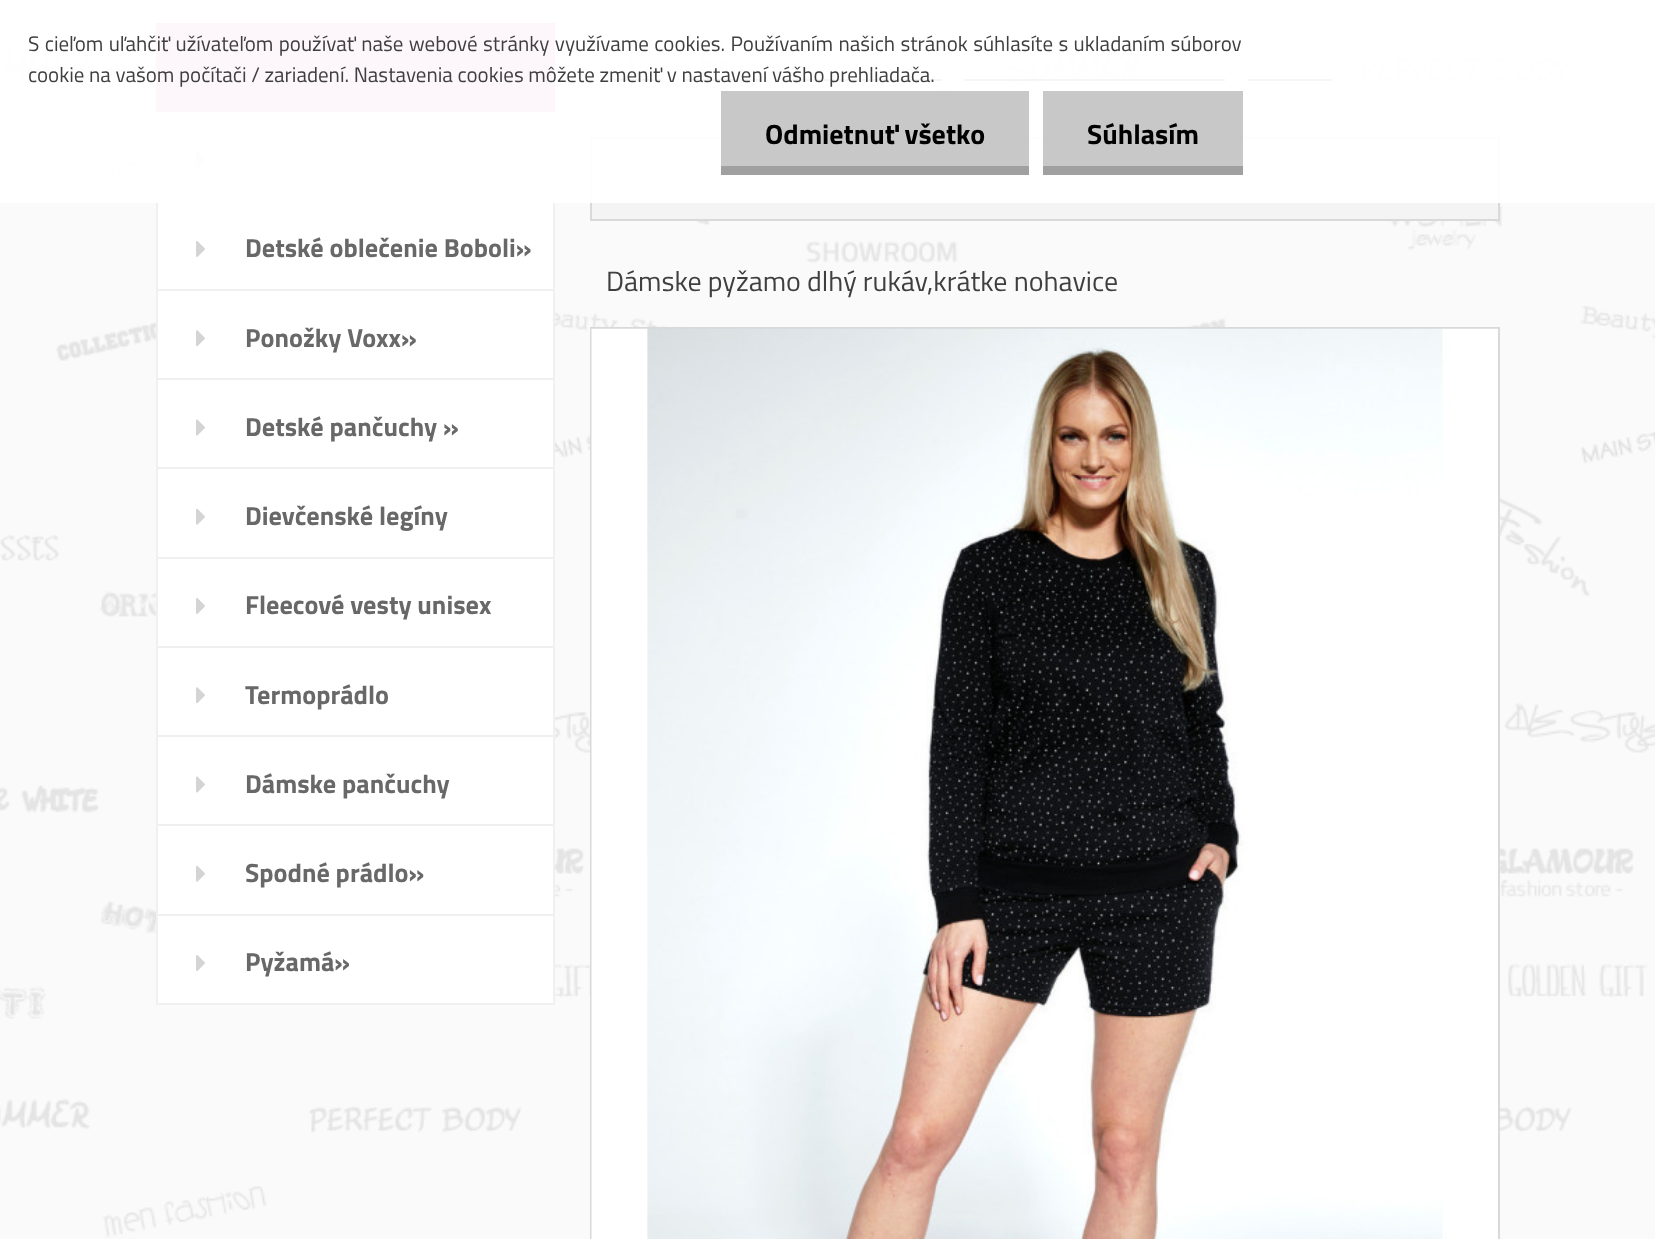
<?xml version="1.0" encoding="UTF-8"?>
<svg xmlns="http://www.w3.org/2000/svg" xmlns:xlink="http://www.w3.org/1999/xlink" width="1655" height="1239">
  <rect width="100%" height="100%" fill="#fafafa" />
  <image x="0" y="38" width="1655" height="1200" xlink:href="image1.png" />
  <rect x="156" y="23" width="399" height="89" fill="#cf4ba2" />
  <rect x="158" y="112" width="395" height="88" fill="#ffffff" />
  <rect x="553" y="112" width="2" height="89" fill="#f0f0f0" />
  <rect x="156" y="200" width="399" height="2" fill="#f0f0f0" />
  <rect x="156" y="112" width="2" height="89" fill="#f0f0f0" />
  <image x="196" y="151" width="9" height="17" xlink:href="image2.png" />
  <rect x="158" y="202" width="395" height="87" fill="#ffffff" />
  <rect x="553" y="201" width="2" height="357" fill="#f0f0f0" />
  <rect x="156" y="289" width="399" height="2" fill="#f0f0f0" />
  <rect x="156" y="201" width="2" height="90" fill="#f0f0f0" />
  <rect x="613" y="79" width="49" height="2" fill="#4b4b4b" />
  <rect x="684" y="79" width="77" height="2" fill="#4b4b4b" />
  <rect x="784" y="79" width="158" height="2" fill="#4b4b4b" />
  <rect x="964" y="79" width="261" height="2" fill="#000000" fill-opacity="0.7" />
  <rect x="1248" y="79" width="84" height="2" fill="#4b4b4b" />
  <rect x="591" y="138" width="908" height="82" fill="#f4f4f4" stroke="#d9d9d9" stroke-width="2" />
  <rect width="1655" height="203" fill="#ffffff" fill-opacity="0.95" />
  <rect x="721" y="91" width="308" height="75" fill="#c8c8c8" />
  <rect x="721" y="166" width="308" height="9" fill="#a0a0a0" />
  <rect x="1043" y="91" width="200" height="75" fill="#c8c8c8" />
  <rect x="1043" y="166" width="200" height="9" fill="#a0a0a0" />
  <image x="196" y="241" width="9" height="16" xlink:href="image3.png" />
  <rect x="158" y="291" width="395" height="87" fill="#ffffff" />
  <rect x="156" y="378" width="399" height="2" fill="#f0f0f0" />
  <rect x="156" y="291" width="2" height="89" fill="#f0f0f0" />
  <image x="196" y="330" width="9" height="17" xlink:href="image4.png" />
  <rect x="158" y="380" width="395" height="87" fill="#ffffff" />
  <rect x="156" y="467" width="399" height="2" fill="#f0f0f0" />
  <rect x="156" y="380" width="2" height="89" fill="#f0f0f0" />
  <image x="196" y="419" width="9" height="17" xlink:href="image5.png" />
  <rect x="158" y="469" width="395" height="88" fill="#ffffff" />
  <rect x="156" y="557" width="399" height="2" fill="#f0f0f0" />
  <rect x="156" y="469" width="2" height="89" fill="#f0f0f0" />
  <image x="196" y="508" width="9" height="17" xlink:href="image2.png" />
  <rect x="158" y="559" width="395" height="87" fill="#ffffff" />
  <rect x="553" y="558" width="2" height="357" fill="#f0f0f0" />
  <rect x="156" y="646" width="399" height="2" fill="#f0f0f0" />
  <rect x="156" y="558" width="2" height="90" fill="#f0f0f0" />
  <image x="196" y="598" width="9" height="16" xlink:href="image3.png" />
  <rect x="158" y="648" width="395" height="87" fill="#ffffff" />
  <rect x="156" y="735" width="399" height="2" fill="#f0f0f0" />
  <rect x="156" y="648" width="2" height="89" fill="#f0f0f0" />
  <image x="196" y="687" width="9" height="17" xlink:href="image4.png" />
  <rect x="158" y="737" width="395" height="87" fill="#ffffff" />
  <rect x="156" y="824" width="399" height="2" fill="#f0f0f0" />
  <rect x="156" y="737" width="2" height="89" fill="#f0f0f0" />
  <image x="196" y="776" width="9" height="17" xlink:href="image5.png" />
  <rect x="158" y="826" width="395" height="88" fill="#ffffff" />
  <rect x="156" y="914" width="399" height="2" fill="#f0f0f0" />
  <rect x="156" y="826" width="2" height="89" fill="#f0f0f0" />
  <image x="196" y="865" width="9" height="17" xlink:href="image2.png" />
  <rect x="158" y="916" width="395" height="87" fill="#ffffff" />
  <rect x="553" y="915" width="2" height="90" fill="#f0f0f0" />
  <rect x="156" y="1003" width="399" height="2" fill="#f0f0f0" />
  <rect x="156" y="915" width="2" height="90" fill="#f0f0f0" />
  <image x="196" y="955" width="9" height="16" xlink:href="image3.png" />
  <rect x="591" y="328" width="908" height="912" fill="none" stroke="#d9d9d9" stroke-width="2" />
  <image x="591" y="328" width="907" height="911" xlink:href="image6.png" />
  <text x="28" y="51" word-spacing="0.75" style="font-family: Titillium Web; font-size: 21px; fill: #3f3f3f">S cieľom uľahčiť užívateľom používať naše webové stránky využívame cookies. Používaním našich stránok súhlasíte s ukladaním súborov</text>
  <text x="28" y="82" style="font-family: Titillium Web; font-size: 21px; fill: #3f3f3f">cookie na vašom počítači / zariadení. Nastavenia cookies môžete zmeniť v nastavení vášho prehliadača.</text>
  <text x="765" y="144" style="font-family: Titillium Web; font-size: 28px; font-weight: bold; fill: #000000">Odmietnuť všetko</text>
  <text x="1087" y="144" style="font-family: Titillium Web; font-size: 28px; font-weight: bold; fill: #000000">Súhlasím</text>
  <text x="245" y="257" style="font-family: Titillium Web; font-size: 26.25px; font-weight: bold; fill: #686868">Detské oblečenie Boboli»</text>
  <text x="245" y="347" style="font-family: Titillium Web; font-size: 26.25px; font-weight: bold; fill: #686868">Ponožky Voxx»</text>
  <text x="245" y="436" style="font-family: Titillium Web; font-size: 26.25px; font-weight: bold; fill: #686868">Detské pančuchy »</text>
  <text x="245" y="525" style="font-family: Titillium Web; font-size: 26.25px; font-weight: bold; fill: #686868">Dievčenské legíny</text>
  <text x="245" y="614" style="font-family: Titillium Web; font-size: 26.25px; font-weight: bold; fill: #686868">Fleecové vesty unisex</text>
  <text x="245" y="704" style="font-family: Titillium Web; font-size: 26.25px; font-weight: bold; fill: #686868">Termoprádlo</text>
  <text x="245" y="793" style="font-family: Titillium Web; font-size: 26.25px; font-weight: bold; fill: #686868">Dámske pančuchy</text>
  <text x="245" y="882" style="font-family: Titillium Web; font-size: 26.25px; font-weight: bold; fill: #686868">Spodné prádlo»</text>
  <text x="245" y="971" style="font-family: Titillium Web; font-size: 26.25px; font-weight: bold; fill: #686868">Pyžamá»</text>
  <text x="606" y="291" style="font-family: Titillium Web; font-size: 28px; fill: #3f3f3f">Dámske pyžamo dlhý rukáv,krátke nohavice</text>
</svg>
